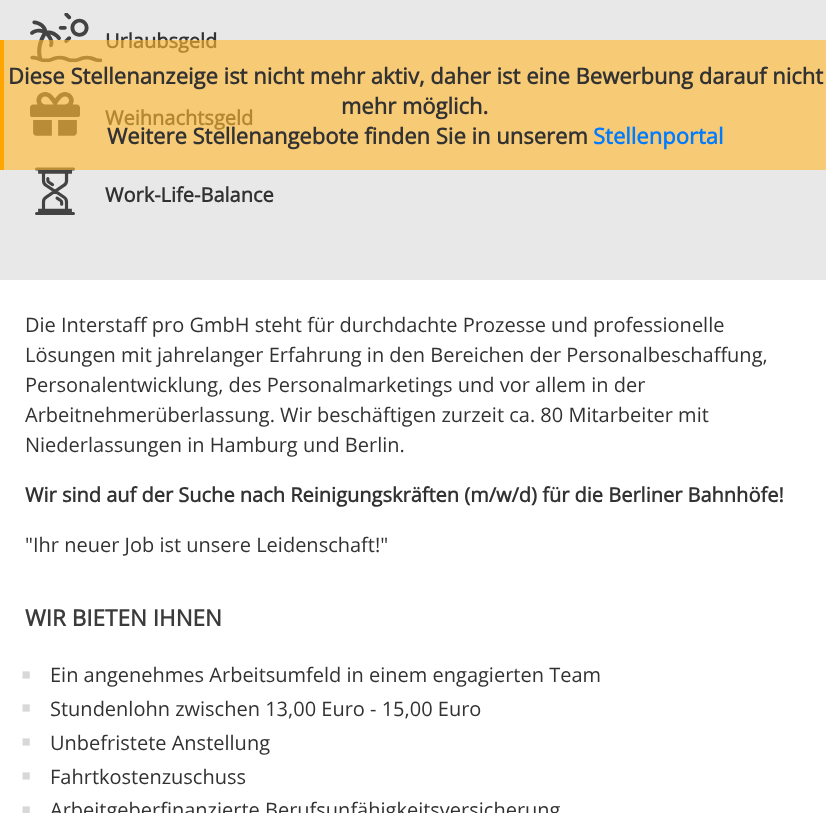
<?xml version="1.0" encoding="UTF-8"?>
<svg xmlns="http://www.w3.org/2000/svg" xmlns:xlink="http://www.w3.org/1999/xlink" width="826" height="813">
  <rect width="100%" height="100%" fill="#ffffff" />
  <rect width="826" height="280" fill="#e8e8e8" />
  <image x="30" y="13" width="73" height="50" xlink:href="image1.png" />
  <image x="30" y="92" width="50" height="44" xlink:href="image2.png" />
  <image x="35" y="167" width="40" height="48" xlink:href="image3.png" />
  <rect y="40" width="4" height="130" fill="#ffa500" />
  <text x="105" y="48" style="font-family: Open Sans; font-size: 20px; font-weight: bold; fill: #323232">Urlaubsgeld</text>
  <text x="105" y="125" style="font-family: Open Sans; font-size: 20px; font-weight: bold; fill: #323232">Weihnachtsgeld</text>
  <text x="105" y="202" style="font-family: Open Sans; font-size: 20px; font-weight: bold; fill: #323232">Work-Life-Balance</text>
  <text x="25" y="332" style="font-family: Open Sans; font-size: 20px; fill: #323232">Die Interstaff pro GmbH steht für durchdachte Prozesse und professionelle</text>
  <text x="25" y="362" style="font-family: Open Sans; font-size: 20px; fill: #323232">Lösungen mit jahrelanger Erfahrung in den Bereichen der Personalbeschaffung,</text>
  <text x="25" y="392" style="font-family: Open Sans; font-size: 20px; fill: #323232">Personalentwicklung, des Personalmarketings und vor allem in der</text>
  <text x="25" y="422" style="font-family: Open Sans; font-size: 20px; fill: #323232">Arbeitnehmerüberlassung. Wir beschäftigen zurzeit ca. 80 Mitarbeiter mit</text>
  <text x="25" y="452" style="font-family: Open Sans; font-size: 20px; fill: #323232">Niederlassungen in Hamburg und Berlin.</text>
  <text x="25" y="502" style="font-family: Open Sans; font-size: 20px; font-weight: bold; fill: #323232">Wir sind auf der Suche nach Reinigungskräften (m/w/d) für die Berliner Bahnhöfe!</text>
  <text x="25" y="552" style="font-family: Open Sans; font-size: 20px; fill: #323232">"Ihr neuer Job ist unsere Leidenschaft!"</text>
  <text x="25" y="626" style="font-family: Open Sans; font-size: 22.5px; font-weight: bold; fill: #3b3b3b">WIR BIETEN IHNEN</text>
  <text x="21" y="684" style="font-family: Liberation Sans; font-size: 29px; font-weight: bold; fill: #d8d8d8">▪</text>
  <text x="50" y="682" style="font-family: Open Sans; font-size: 20px; fill: #323232">Ein angenehmes Arbeitsumfeld in einem engagierten Team</text>
  <text x="21" y="717" style="font-family: Liberation Sans; font-size: 29px; font-weight: bold; fill: #d8d8d8">▪</text>
  <text x="50" y="716" style="font-family: Open Sans; font-size: 20px; fill: #323232">Stundenlohn zwischen 13,00 Euro - 15,00 Euro</text>
  <text x="21" y="751" style="font-family: Liberation Sans; font-size: 29px; font-weight: bold; fill: #d8d8d8">▪</text>
  <text x="50" y="750" style="font-family: Open Sans; font-size: 20px; fill: #323232">Unbefristete Anstellung</text>
  <text x="21" y="785" style="font-family: Liberation Sans; font-size: 29px; font-weight: bold; fill: #d8d8d8">▪</text>
  <text x="50" y="784" style="font-family: Open Sans; font-size: 20px; fill: #323232">Fahrtkostenzuschuss</text>
  <text x="21" y="819" style="font-family: Liberation Sans; font-size: 29px; font-weight: bold; fill: #d8d8d8">▪</text>
  <text x="50" y="817" style="font-family: Open Sans; font-size: 20px; fill: #323232">Arbeitgeberfinanzierte Berufsunfähigkeitsversicherung</text>
  <rect x="4" y="40" width="822" height="130" fill="#ffb733" fill-opacity="0.63" />
  <text x="8" y="84" style="font-family: Open Sans; font-size: 22px; font-weight: bold; fill: #323232">Diese Stellenanzeige ist nicht mehr aktiv, daher ist eine Bewerbung darauf nicht</text>
  <text x="341" y="114" style="font-family: Open Sans; font-size: 22px; font-weight: bold; fill: #323232">mehr möglich.</text>
  <text x="107" y="144" style="font-family: Open Sans; font-size: 22px; font-weight: bold; fill: #323232">Weitere Stellenangebote finden Sie in unserem</text>
  <text x="593" y="144" style="font-family: Open Sans; font-size: 22px; font-weight: bold; fill: #007bff">Stellenportal</text>
</svg>
